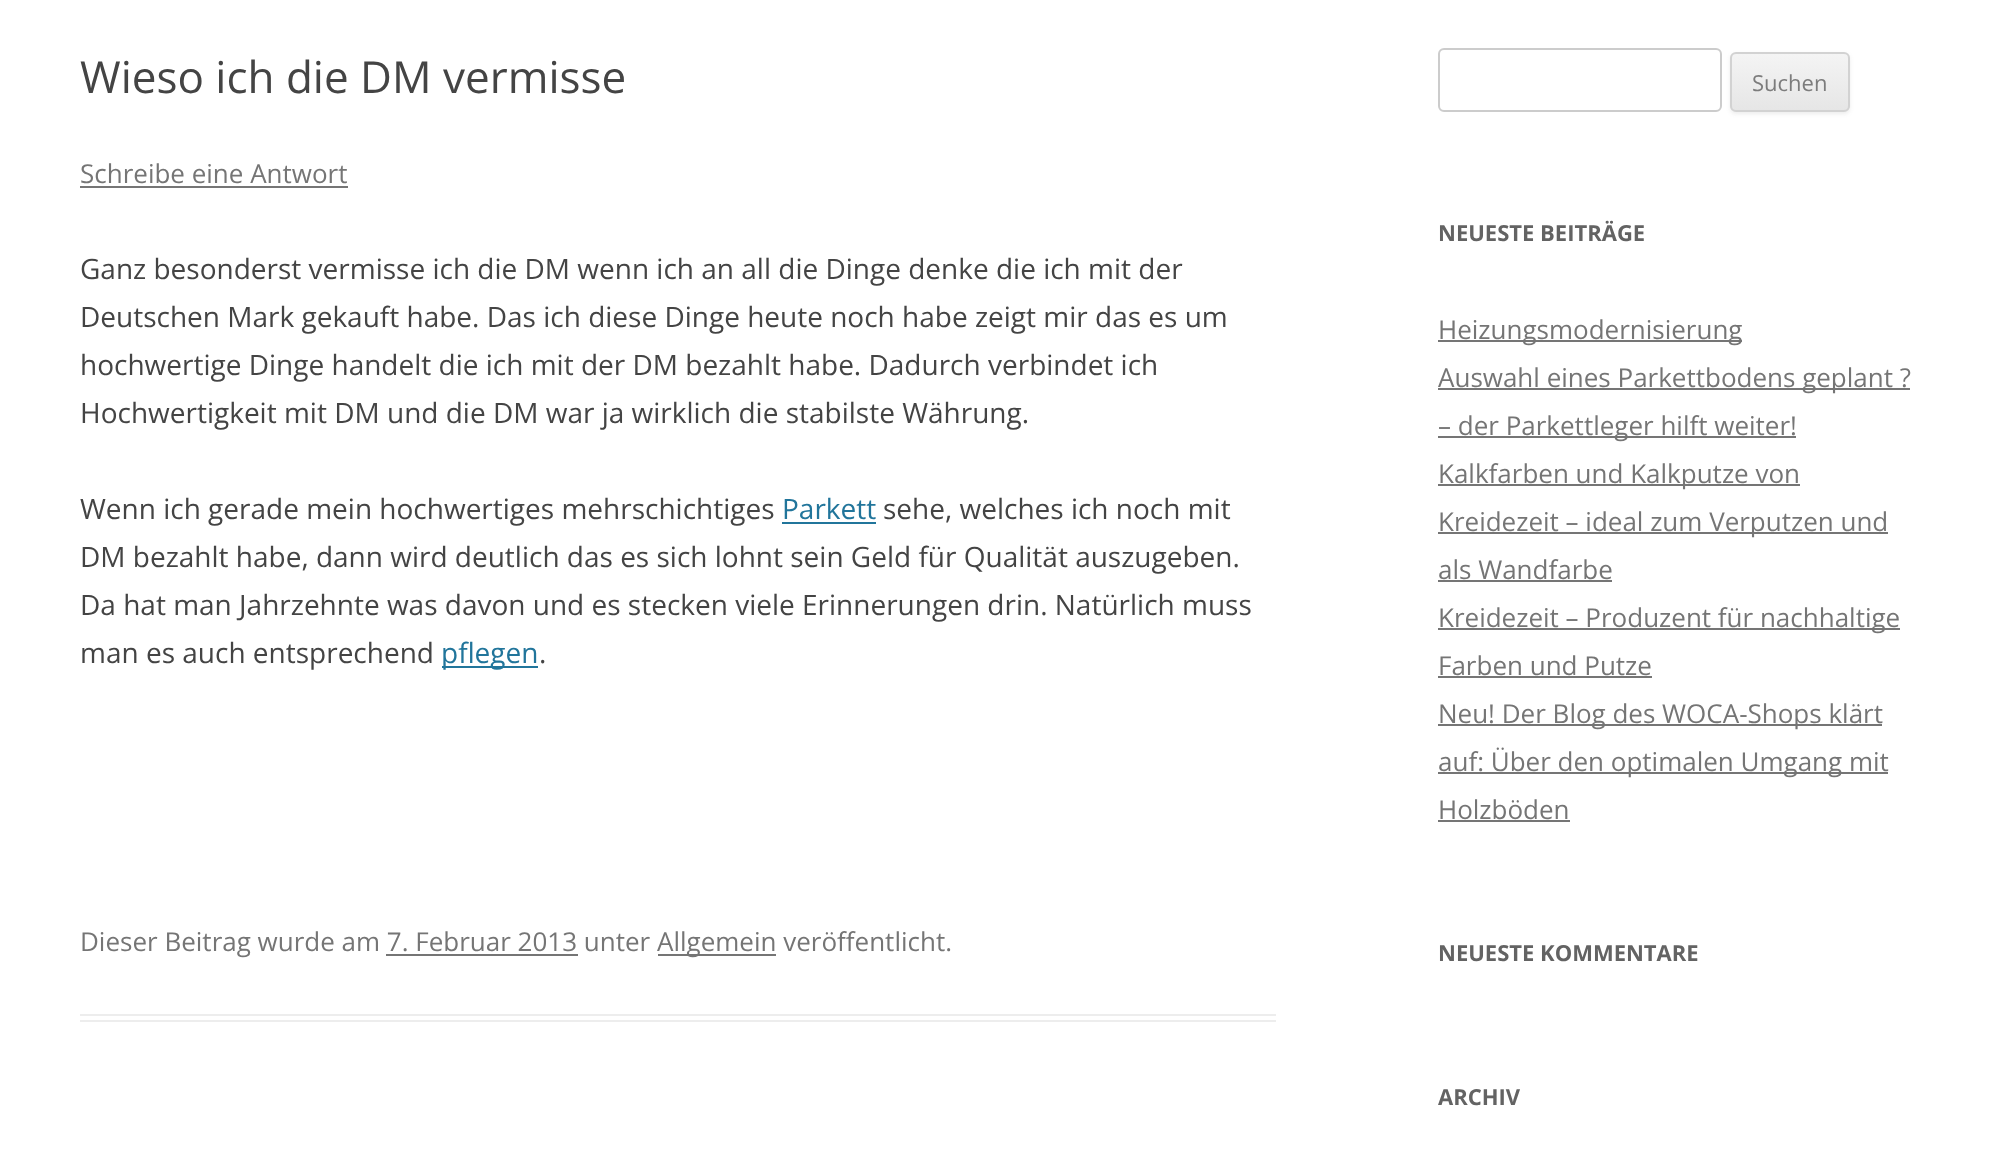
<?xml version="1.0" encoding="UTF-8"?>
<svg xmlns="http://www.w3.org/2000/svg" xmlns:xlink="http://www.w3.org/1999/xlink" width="1996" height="1153">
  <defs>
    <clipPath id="clip1"><rect x="1730" y="52" width="120" height="60" rx="6" /></clipPath>
    <linearGradient id="g1" gradientUnits="userSpaceOnUse" x1="1790" y1="54" x2="1790" y2="110"><stop offset="0" stop-color="#f4f4f4" /><stop offset="1" stop-color="#e6e6e6" /></linearGradient>
  </defs>
  <rect width="100%" height="100%" fill="#ffffff" />
  <rect x="80" y="1014" width="1196" height="2" fill="#ededed" />
  <rect x="80" y="1020" width="1196" height="2" fill="#ededed" />
  <rect x="80" y="186" width="268" height="2" fill="#757575" />
  <rect x="782" y="522" width="94" height="2" fill="#21759b" />
  <rect x="442" y="666" width="96" height="2" fill="#21759b" />
  <rect x="658" y="954" width="118" height="2" fill="#757575" />
  <rect x="386" y="954" width="192" height="2" fill="#757575" />
  <rect x="1439" y="49" width="282" height="62" rx="5" fill="none" stroke="#cccccc" stroke-width="2" />
  <rect x="1730" y="54" width="120" height="60" rx="6" fill="#404040" fill-opacity="0.1" filter="blur(2px)" />
  <g clip-path="url(#clip1)">
    <rect x="1730" y="54" width="120" height="56" fill="url(#g1)" />
  </g>
  <rect x="1731" y="53" width="118" height="58" rx="5" fill="none" stroke="#d2d2d2" stroke-width="2" />
  <rect x="1438" y="340" width="304" height="2" fill="#757575" />
  <rect x="1438" y="388" width="472" height="2" fill="#757575" />
  <rect x="1438" y="436" width="358" height="2" fill="#757575" />
  <rect x="1438" y="484" width="362" height="2" fill="#757575" />
  <rect x="1438" y="532" width="450" height="2" fill="#757575" />
  <rect x="1438" y="580" width="174" height="2" fill="#757575" />
  <rect x="1438" y="628" width="462" height="2" fill="#757575" />
  <rect x="1438" y="676" width="214" height="2" fill="#757575" />
  <rect x="1438" y="724" width="444" height="2" fill="#757575" />
  <rect x="1438" y="772" width="450" height="2" fill="#757575" />
  <rect x="1438" y="820" width="132" height="2" fill="#757575" />
  <text x="80" y="93" style="font-family: Open Sans; font-size: 44px; fill: #444444">Wieso ich die DM vermisse</text>
  <text x="80" y="183" style="font-family: Open Sans; font-size: 26px; fill: #757575">Schreibe eine Antwort</text>
  <text x="80" y="279" style="font-family: Open Sans; font-size: 28px; fill: #444444">Ganz besonderst vermisse ich die DM wenn ich an all die Dinge denke die ich mit der</text>
  <text x="80" y="327" style="font-family: Open Sans; font-size: 28px; fill: #444444">Deutschen Mark gekauft habe. Das ich diese Dinge heute noch habe zeigt mir das es um</text>
  <text x="80" y="375" style="font-family: Open Sans; font-size: 28px; fill: #444444">hochwertige Dinge handelt die ich mit der DM bezahlt habe. Dadurch verbindet ich</text>
  <text x="80" y="423" style="font-family: Open Sans; font-size: 28px; fill: #444444">Hochwertigkeit mit DM und die DM war ja wirklich die stabilste Währung.</text>
  <text x="80" y="519" style="font-family: Open Sans; font-size: 28px; fill: #444444">Wenn ich gerade mein hochwertiges mehrschichtiges</text>
  <text x="782" y="519" style="font-family: Open Sans; font-size: 28px; fill: #21759b">Parkett</text>
  <text x="883" y="519" style="font-family: Open Sans; font-size: 28px; fill: #444444">sehe, welches ich noch mit</text>
  <text x="80" y="567" style="font-family: Open Sans; font-size: 28px; fill: #444444">DM bezahlt habe, dann wird deutlich das es sich lohnt sein Geld für Qualität auszugeben.</text>
  <text x="80" y="615" style="font-family: Open Sans; font-size: 28px; fill: #444444">Da hat man Jahrzehnte was davon und es stecken viele Erinnerungen drin. Natürlich muss</text>
  <text x="80" y="663" style="font-family: Open Sans; font-size: 28px; fill: #444444">man es auch entsprechend</text>
  <text x="441" y="663" style="font-family: Open Sans; font-size: 28px; fill: #21759b">pflegen</text>
  <text x="539" y="663" style="font-family: Open Sans; font-size: 28px; fill: #444444">.</text>
  <text x="80" y="951" style="font-family: Open Sans; font-size: 26px; fill: #757575">Dieser Beitrag wurde am 7. Februar 2013 unter</text>
  <text x="657" y="951" style="font-family: Open Sans; font-size: 26px; fill: #757575">Allgemein veröffentlicht.</text>
  <text x="1752" y="91" style="font-family: Open Sans; font-size: 22px; fill: #7c7c7c">Suchen</text>
  <text x="1438" y="241" style="font-family: Open Sans; font-size: 22px; font-weight: bold; fill: #636363">NEUESTE BEITRÄGE</text>
  <text x="1438" y="339" style="font-family: Open Sans; font-size: 26px; fill: #757575">Heizungsmodernisierung</text>
  <text x="1438" y="387" style="font-family: Open Sans; font-size: 26px; fill: #757575">Auswahl eines Parkettbodens geplant ?</text>
  <text x="1438" y="435" style="font-family: Open Sans; font-size: 26px; fill: #757575">– der Parkettleger hilft weiter!</text>
  <text x="1438" y="483" style="font-family: Open Sans; font-size: 26px; fill: #757575">Kalkfarben und Kalkputze von</text>
  <text x="1438" y="531" style="font-family: Open Sans; font-size: 26px; fill: #757575">Kreidezeit – ideal zum Verputzen und</text>
  <text x="1438" y="579" style="font-family: Open Sans; font-size: 26px; fill: #757575">als Wandfarbe</text>
  <text x="1438" y="627" style="font-family: Open Sans; font-size: 26px; fill: #757575">Kreidezeit – Produzent für nachhaltige</text>
  <text x="1438" y="675" style="font-family: Open Sans; font-size: 26px; fill: #757575">Farben und Putze</text>
  <text x="1438" y="723" style="font-family: Open Sans; font-size: 26px; fill: #757575">Neu! Der Blog des WOCA-Shops klärt</text>
  <text x="1438" y="771" style="font-family: Open Sans; font-size: 26px; fill: #757575">auf: Über den optimalen Umgang mit</text>
  <text x="1438" y="819" style="font-family: Open Sans; font-size: 26px; fill: #757575">Holzböden</text>
  <text x="1438" y="961" style="font-family: Open Sans; font-size: 22px; font-weight: bold; fill: #636363">NEUESTE KOMMENTARE</text>
  <text x="1438" y="1105" style="font-family: Open Sans; font-size: 22px; font-weight: bold; fill: #636363">ARCHIV</text>
</svg>
